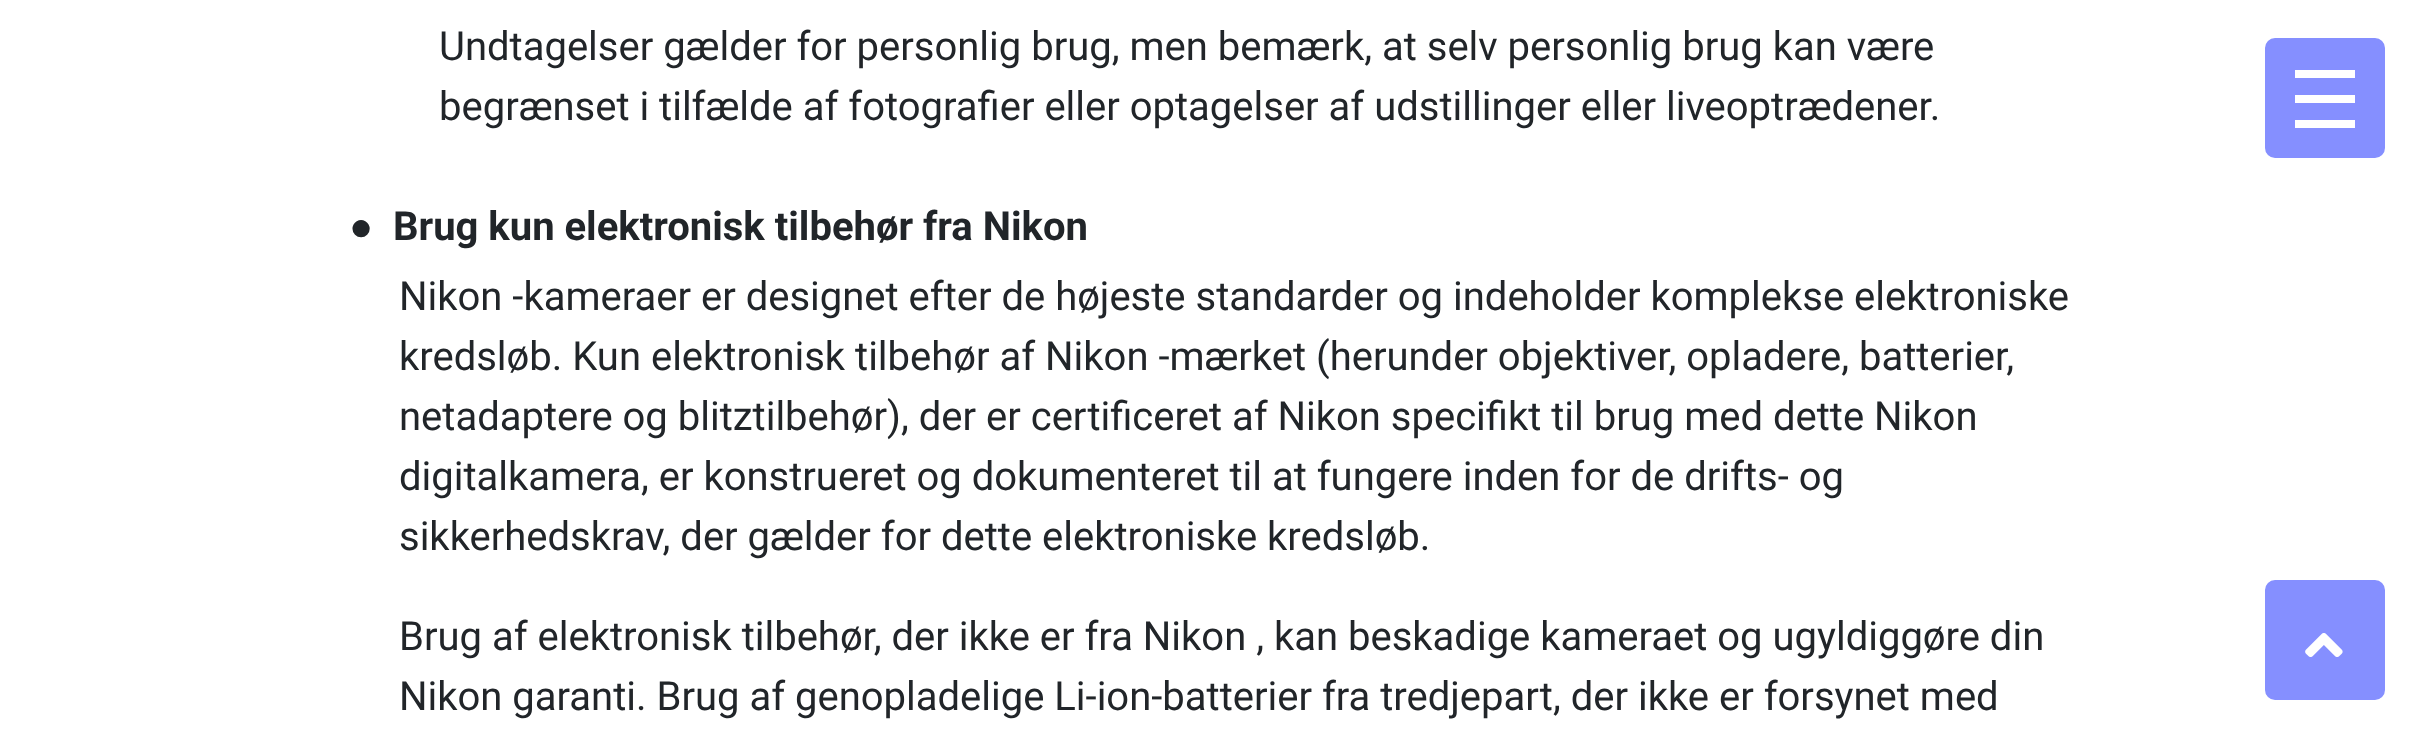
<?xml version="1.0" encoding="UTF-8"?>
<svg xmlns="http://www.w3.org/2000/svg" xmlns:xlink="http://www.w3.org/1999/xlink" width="2421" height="738">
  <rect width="100%" height="100%" fill="#ffffff" />
  <rect x="2267.5" y="40.5" width="115" height="115" rx="7.5" fill="#858fff" stroke="#858fff" stroke-width="5" />
  <rect x="2295" y="95" width="60" height="8" fill="#ffffff" />
  <rect x="2295" y="70" width="60" height="8" fill="#ffffff" />
  <rect x="2295" y="120" width="60" height="8" fill="#ffffff" />
  <rect x="2267.5" y="582.5" width="115" height="115" rx="7.5" fill="#858fff" stroke="#858fff" stroke-width="5" />
  <image x="2305" y="633" width="38" height="24" xlink:href="image1.png" />
  <text x="439" y="60" style="font-family: Roboto; font-size: 40px; fill: #212529">Undtagelser gælder for personlig brug, men bemærk, at selv personlig brug kan være</text>
  <text x="439" y="120" style="font-family: Roboto; font-size: 40px; fill: #212529">begrænset i tilfælde af fotografier eller optagelser af udstillinger eller liveoptrædener.</text>
  <text x="349" y="240" style="font-family: Liberation Sans; font-size: 40px; font-weight: bold; fill: #212529">●</text>
  <text x="393" y="240" style="font-family: Roboto; font-size: 40px; font-weight: bold; fill: #212529">Brug kun elektronisk tilbehør fra Nikon</text>
  <text x="399" y="310" style="font-family: Roboto; font-size: 40px; fill: #212529">Nikon -kameraer er designet efter de højeste standarder og indeholder komplekse elektroniske</text>
  <text x="399" y="370" style="font-family: Roboto; font-size: 40px; fill: #212529">kredsløb. Kun elektronisk tilbehør af Nikon -mærket (herunder objektiver, opladere, batterier,</text>
  <text x="399" y="430" style="font-family: Roboto; font-size: 40px; fill: #212529">netadaptere og blitztilbehør), der er certificeret af Nikon specifikt til brug med dette Nikon</text>
  <text x="399" y="490" style="font-family: Roboto; font-size: 40px; fill: #212529">digitalkamera, er konstrueret og dokumenteret til at fungere inden for de drifts- og</text>
  <text x="399" y="550" style="font-family: Roboto; font-size: 40px; fill: #212529">sikkerhedskrav, der gælder for dette elektroniske kredsløb.</text>
  <text x="399" y="650" style="font-family: Roboto; font-size: 40px; fill: #212529">Brug af elektronisk tilbehør, der ikke er fra Nikon , kan beskadige kameraet og ugyldiggøre din</text>
  <text x="399" y="710" style="font-family: Roboto; font-size: 40px; fill: #212529">Nikon garanti. Brug af genopladelige Li-ion-batterier fra tredjepart, der ikke er forsynet med</text>
</svg>
